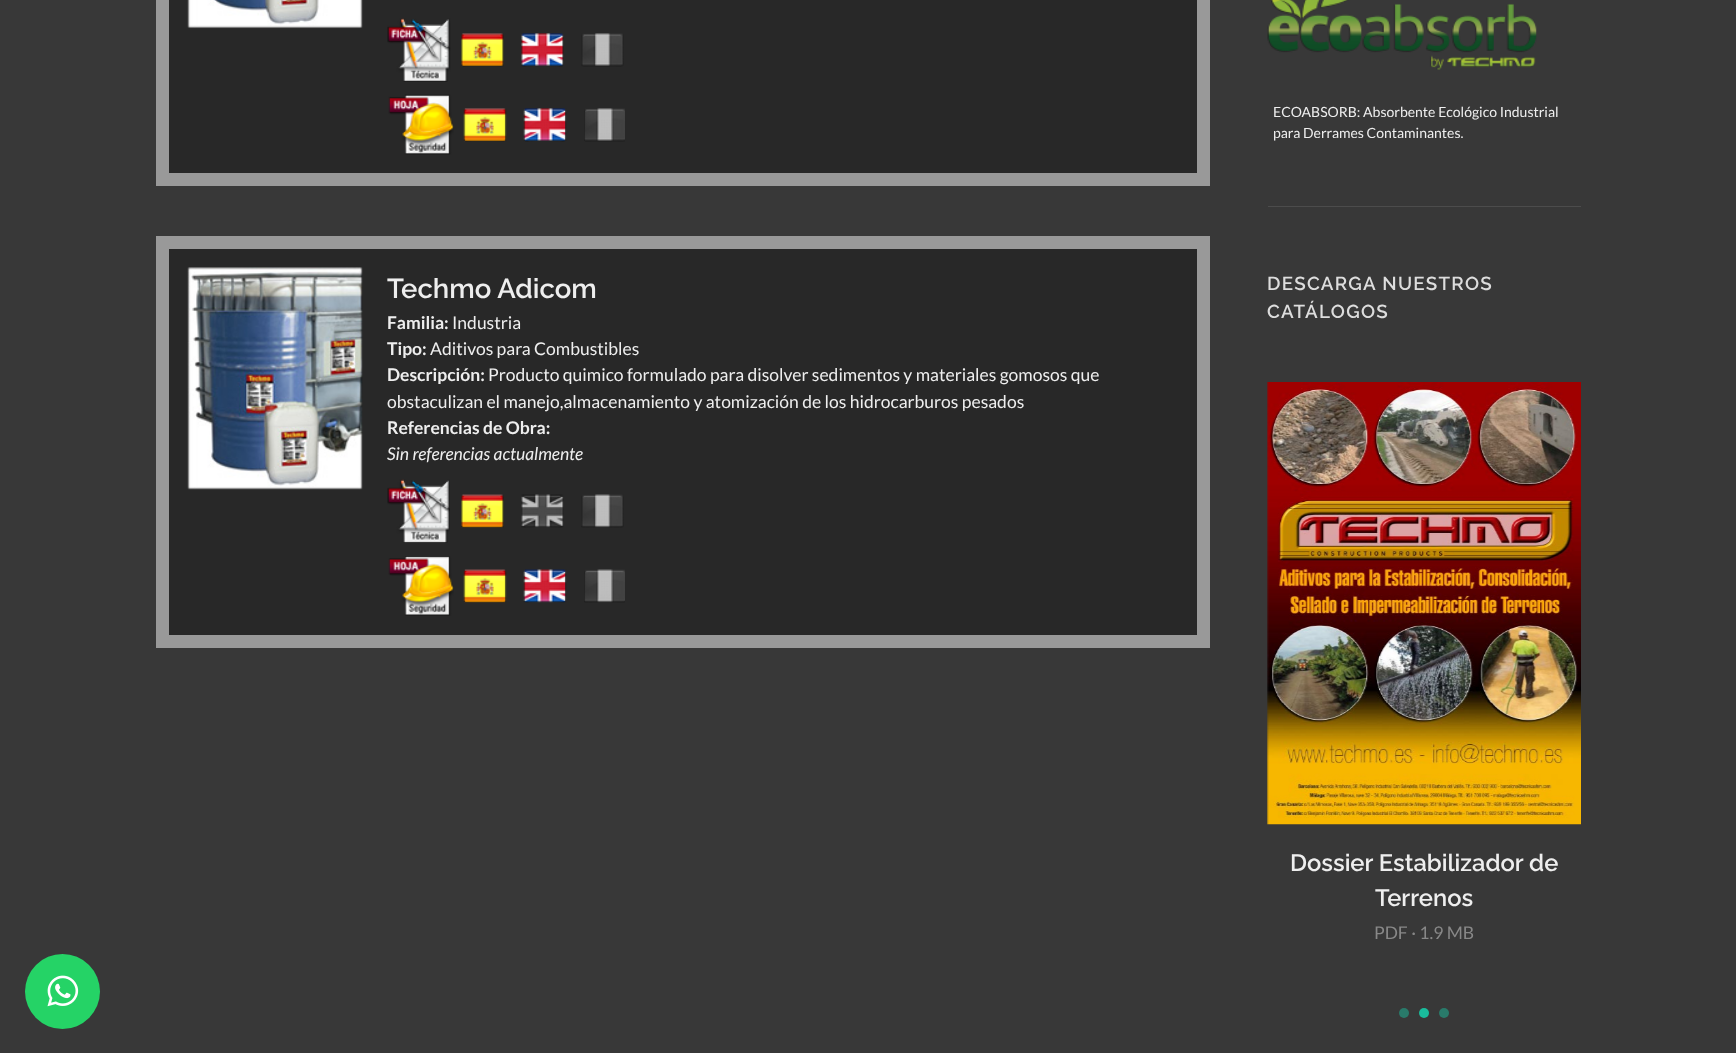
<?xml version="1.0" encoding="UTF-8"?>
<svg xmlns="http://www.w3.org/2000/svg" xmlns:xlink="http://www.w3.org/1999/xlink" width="1736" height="1053">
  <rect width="100%" height="100%" fill="#383838" />
  <rect x="162.5" y="-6.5" width="1041" height="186" fill="#282828" stroke="#999999" stroke-width="13" />
  <image x="187" y="0" width="176" height="29" xlink:href="image1.png" />
  <image x="387" y="18" width="64" height="64" xlink:href="image2.png" />
  <image x="461" y="33" width="43" height="34" xlink:href="image3.png" />
  <image x="521" y="33" width="43" height="34" xlink:href="image4.png" />
  <image x="581" y="33" width="43" height="34" xlink:href="image5.png" />
  <image x="388" y="94" width="66" height="61" xlink:href="image6.png" />
  <image x="463" y="108" width="44" height="34" xlink:href="image7.png" />
  <image x="523" y="108" width="44" height="34" xlink:href="image8.png" />
  <image x="584" y="108" width="41" height="34" xlink:href="image9.png" />
  <rect x="162.5" y="242.5" width="1041" height="399" fill="#282828" stroke="#999999" stroke-width="13" />
  <image x="187" y="267" width="176" height="223" xlink:href="image10.png" />
  <image x="387" y="479" width="63" height="64" xlink:href="image11.png" />
  <image x="461" y="494" width="43" height="34" xlink:href="image12.png" />
  <image x="521" y="494" width="43" height="34" xlink:href="image13.png" />
  <image x="581" y="494" width="43" height="34" xlink:href="image14.png" />
  <image x="388" y="556" width="66" height="60" xlink:href="image15.png" />
  <image x="463" y="569" width="44" height="34" xlink:href="image16.png" />
  <image x="523" y="569" width="44" height="34" xlink:href="image17.png" />
  <image x="584" y="569" width="41" height="34" xlink:href="image18.png" />
  <image x="1267" y="0" width="270" height="70" xlink:href="image19.png" />
  <rect x="1268" y="206" width="313" height="1" fill="#4c4c4c" />
  <image x="1267" y="382" width="314" height="443" xlink:href="image20.png" />
  <circle cx="1404" cy="1013" r="5" fill="#297a6a" />
  <circle cx="1424" cy="1013" r="5" fill="#1abc9c" />
  <circle cx="1444" cy="1013" r="5" fill="#297a6a" />
  <circle cx="62.5" cy="991.5" r="37.5" fill="#25d366" />
  <image x="47" y="975" width="32" height="32" xlink:href="image21.png" />
  <text x="387" y="298" style="font-family: Raleway; font-size: 27.5px; font-weight: 600; fill: #eeeeee">Techmo Adicom</text>
  <text x="387" y="329" style="font-family: Lato; font-size: 17.5px; font-weight: bold; fill: #eeeeee">Familia:</text>
  <text x="452" y="329" style="font-family: Lato; font-size: 17.5px; fill: #eeeeee">Industria</text>
  <text x="387" y="355" style="font-family: Lato; font-size: 17.5px; font-weight: bold; fill: #eeeeee">Tipo:</text>
  <text x="430" y="355" style="font-family: Lato; font-size: 17.5px; fill: #eeeeee">Aditivos para Combustibles</text>
  <text x="387" y="381" style="font-family: Lato; font-size: 17.5px; font-weight: bold; fill: #eeeeee">Descripción:</text>
  <text x="488" y="381" style="font-family: Lato; font-size: 17.5px; fill: #eeeeee">Producto quimico formulado para disolver sedimentos y materiales gomosos que</text>
  <text x="387" y="408" style="font-family: Lato; font-size: 17.5px; fill: #eeeeee">obstaculizan el manejo,almacenamiento y atomización de los hidrocarburos pesados</text>
  <text x="387" y="434" style="font-family: Lato; font-size: 17.5px; font-weight: bold; fill: #eeeeee">Referencias de Obra:</text>
  <text x="387" y="460" style="font-family: Lato; font-size: 17.5px; font-style: italic; fill: #eeeeee">Sin referencias actualmente</text>
  <text x="1273" y="117" style="font-family: Lato; font-size: 14px; fill: #eeeeee">ECOABSORB: Absorbente Ecológico Industrial</text>
  <text x="1273" y="138" style="font-family: Lato; font-size: 14px; fill: #eeeeee">para Derrames Contaminantes.</text>
  <text x="1267" y="290" style="font-family: Raleway; font-size: 18.75px; font-weight: 600; letter-spacing: 1.25px; fill: #dddddd">DESCARGA NUESTROS</text>
  <text x="1267" y="318" style="font-family: Raleway; font-size: 18.75px; font-weight: 600; letter-spacing: 1.25px; fill: #dddddd">CATÁLOGOS</text>
  <text x="1290" y="871" style="font-family: Raleway; font-size: 23.75px; font-weight: 600; fill: #eeeeee">Dossier Estabilizador de</text>
  <text x="1375" y="906" style="font-family: Raleway; font-size: 23.75px; font-weight: 600; fill: #eeeeee">Terrenos</text>
  <text x="1374" y="939" style="font-family: Lato; font-size: 17.5px; fill: #888888">PDF · 1.9 MB</text>
</svg>
